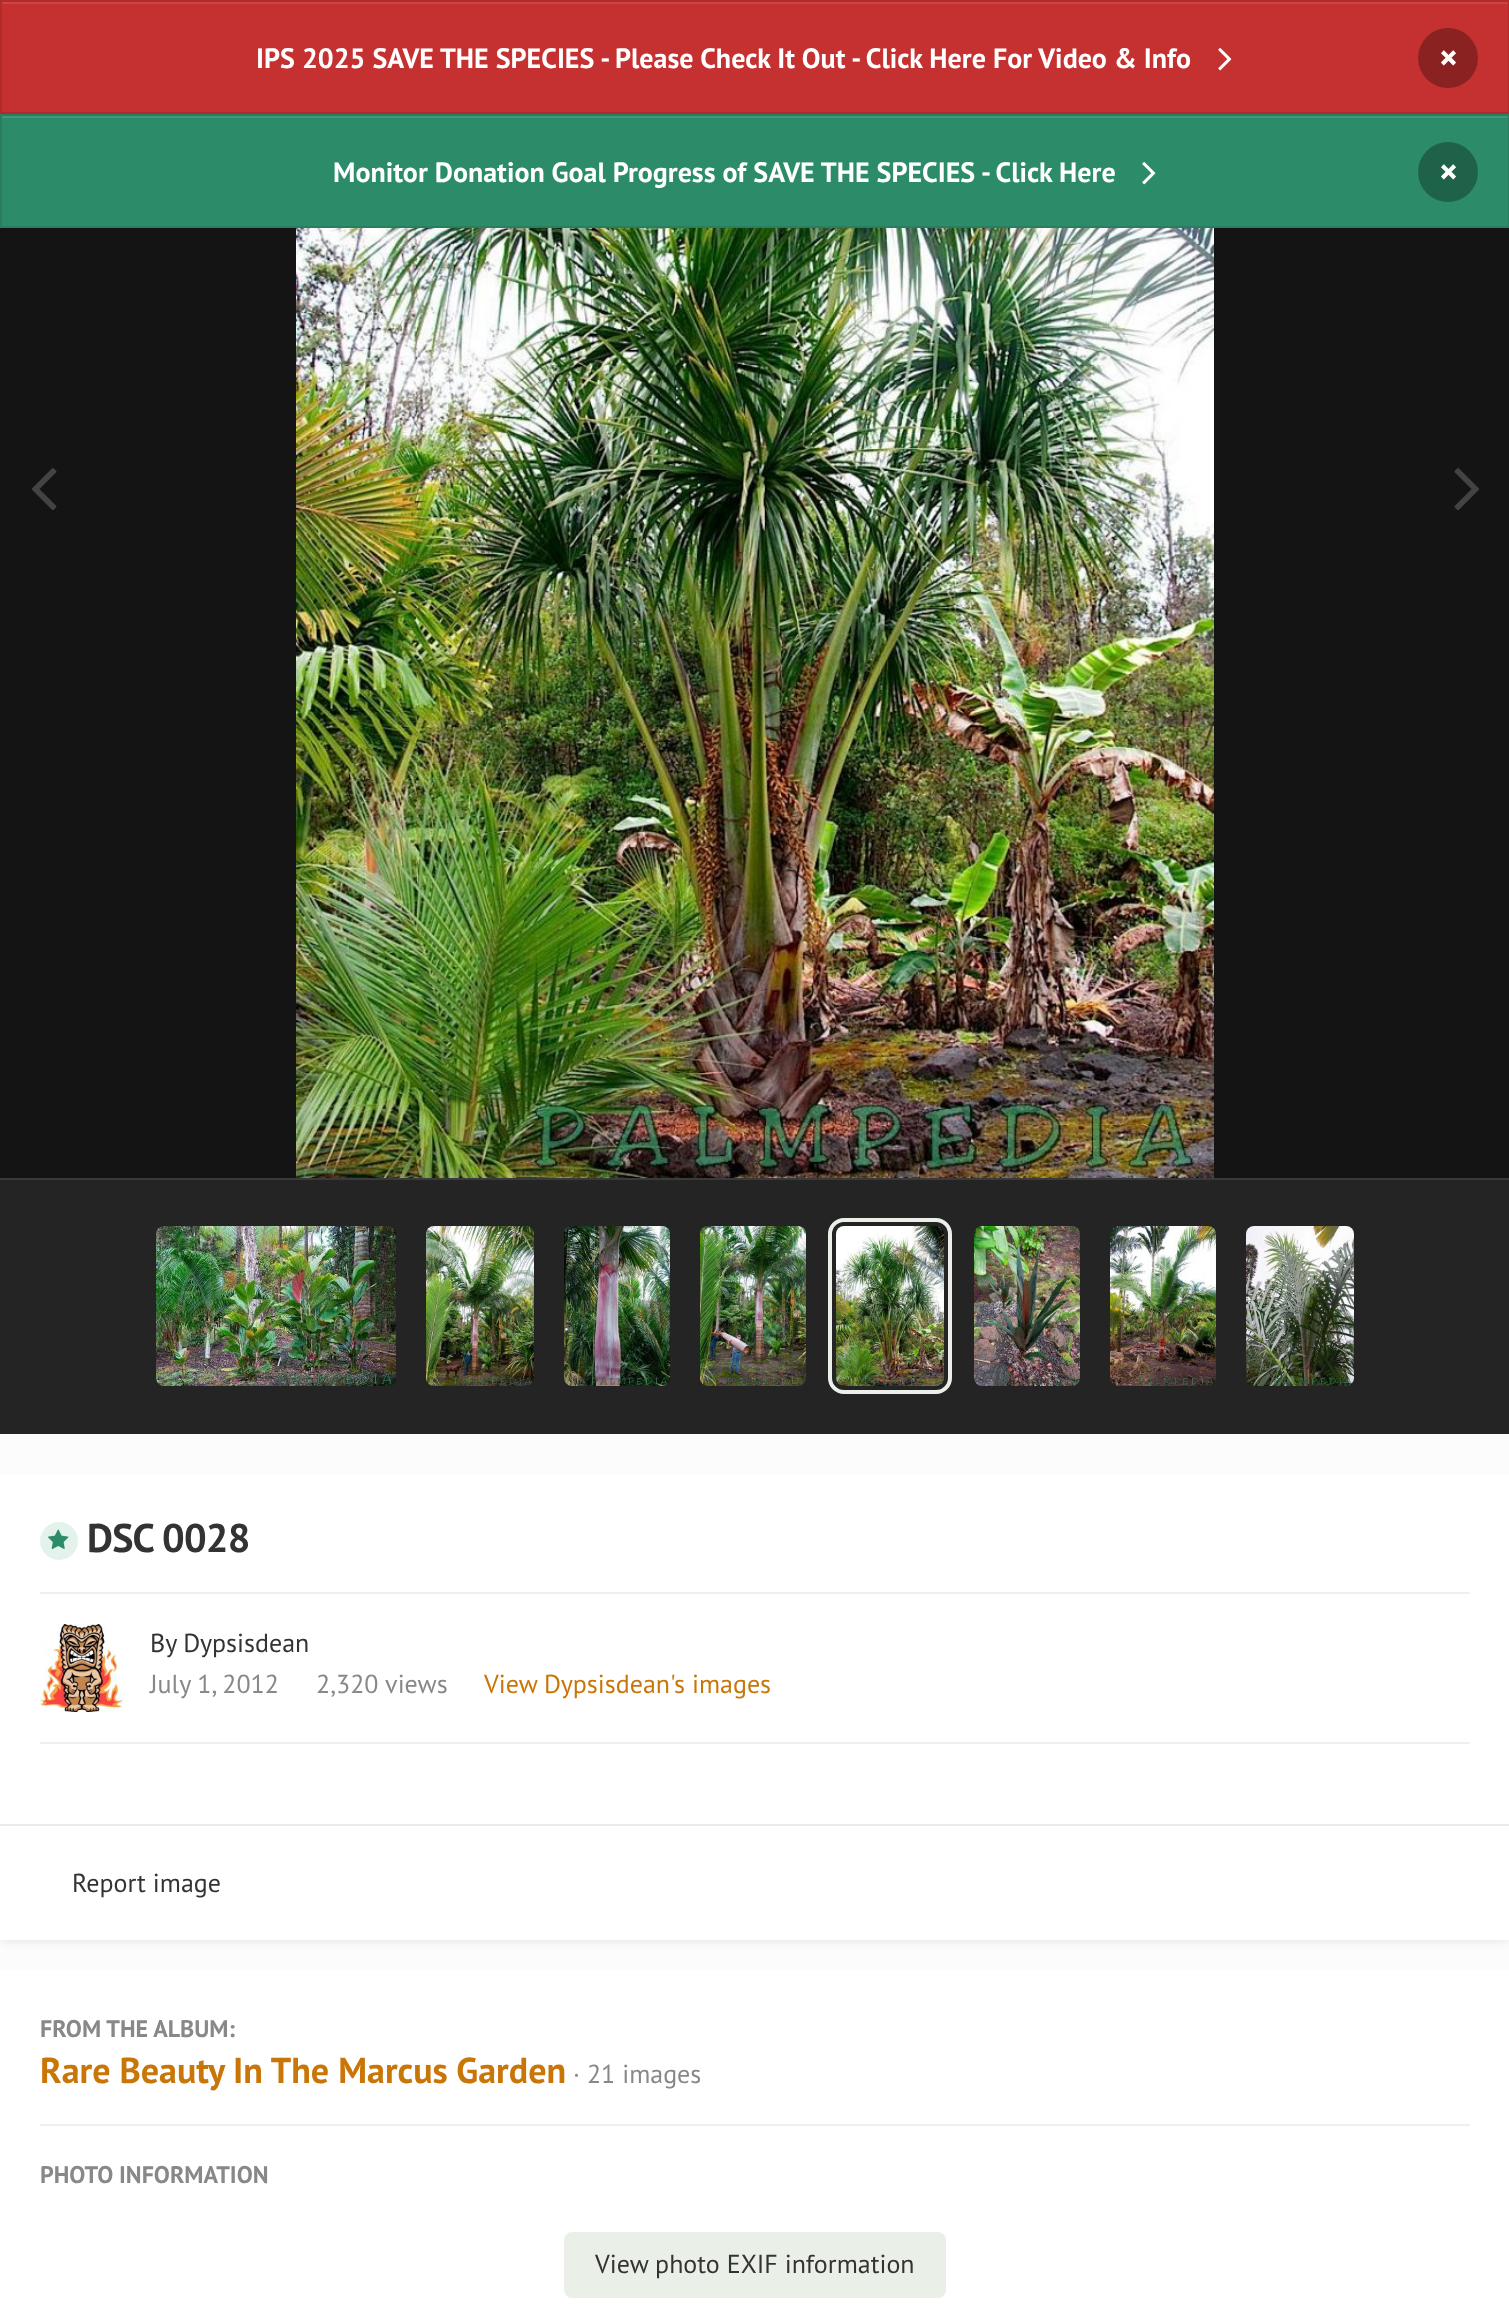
<?xml version="1.0" encoding="UTF-8"?>
<svg xmlns="http://www.w3.org/2000/svg" xmlns:xlink="http://www.w3.org/1999/xlink" width="1509" height="2308">
  <rect width="100%" height="100%" fill="#fcfcfc" />
  <rect x="2" y="4" width="1506" height="108" fill="#c53030" />
  <rect x="2" y="2" width="1506" height="2" fill="#cb4545" />
  <rect x="1" y="1" width="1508" height="112" fill="none" stroke="#b12b2b" stroke-width="2" />
  <image x="1218" y="48" width="14" height="23" xlink:href="image1.png" />
  <circle cx="1448" cy="58" r="30" fill="#8a2222" />
  <rect x="2" y="118" width="1506" height="108" fill="#2c8c69" />
  <rect x="2" y="116" width="1506" height="2" fill="#419878" />
  <rect x="1" y="115" width="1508" height="112" fill="none" stroke="#287e5f" stroke-width="2" />
  <image x="1142" y="162" width="14" height="23" xlink:href="image2.png" />
  <circle cx="1448" cy="172" r="30" fill="#1f624a" />
  <rect y="228" width="1509" height="950" fill="#141414" />
  <image x="296" y="228" width="918" height="950" xlink:href="image3.png" />
  <image x="32" y="468" width="25" height="42" xlink:href="image4.png" />
  <image x="1454" y="468" width="25" height="42" xlink:href="image5.png" />
  <rect y="1180" width="1509" height="254" fill="#242424" />
  <rect y="1178" width="1509" height="2" fill="#3a3a3a" />
  <rect x="156" y="1226" width="240" height="160" rx="8" fill="#141414" />
  <rect x="156" y="1226" width="240" height="160" rx="8" fill="#333333" fill-opacity="0.3" />
  <image x="156" y="1226" width="240" height="160" xlink:href="image6.png" />
  <rect x="426" y="1226" width="108" height="160" rx="8" fill="#141414" />
  <rect x="426" y="1226" width="108" height="160" rx="8" fill="#333333" fill-opacity="0.3" />
  <image x="426" y="1226" width="108" height="160" xlink:href="image7.png" />
  <rect x="564" y="1226" width="106" height="160" rx="8" fill="#141414" />
  <rect x="564" y="1226" width="106" height="160" rx="8" fill="#333333" fill-opacity="0.3" />
  <image x="564" y="1226" width="106" height="160" xlink:href="image8.png" />
  <rect x="700" y="1226" width="106" height="160" rx="8" fill="#141414" />
  <rect x="700" y="1226" width="106" height="160" rx="8" fill="#333333" fill-opacity="0.3" />
  <image x="700" y="1226" width="106" height="160" xlink:href="image9.png" />
  <rect x="836" y="1226" width="108" height="160" rx="8" fill="#141414" />
  <rect x="836" y="1226" width="108" height="160" rx="8" fill="#333333" fill-opacity="0.3" />
  <rect x="830" y="1220" width="120" height="172" rx="14" fill="none" stroke="#eaf0e8" stroke-width="4" />
  <image x="836" y="1226" width="108" height="160" xlink:href="image10.png" />
  <rect x="974" y="1226" width="106" height="160" rx="8" fill="#141414" />
  <rect x="974" y="1226" width="106" height="160" rx="8" fill="#333333" fill-opacity="0.3" />
  <image x="974" y="1226" width="106" height="160" xlink:href="image11.png" />
  <rect x="1110" y="1226" width="106" height="160" rx="8" fill="#141414" />
  <rect x="1110" y="1226" width="106" height="160" rx="8" fill="#333333" fill-opacity="0.3" />
  <image x="1110" y="1226" width="106" height="160" xlink:href="image12.png" />
  <rect x="1246" y="1226" width="108" height="160" rx="8" fill="#141414" />
  <rect x="1246" y="1226" width="108" height="160" rx="8" fill="#333333" fill-opacity="0.3" />
  <image x="1246" y="1226" width="108" height="160" xlink:href="image13.png" />
  <rect x="2" y="1480" width="1506" height="462" fill="#333333" fill-opacity="0.1" filter="blur(4px)" />
  <rect y="1474" width="1509" height="466" fill="#ffffff" />
  <circle cx="59" cy="1541" r="19" fill="#e3f3ec" />
  <image x="48" y="1529" width="21" height="20" xlink:href="image14.png" />
  <rect x="40" y="1592" width="1430" height="2" fill="#efefef" />
  <image x="40" y="1624" width="84" height="88" xlink:href="image15.png" />
  <rect x="40" y="1742" width="1430" height="2" fill="#efefef" />
  <rect y="1824" width="1509" height="2" fill="#ebebeb" />
  <rect y="1970" width="1509" height="338" fill="#ffffff" />
  <rect x="40" y="2124" width="1430" height="2" fill="#efefef" />
  <rect x="564" y="2232" width="382" height="66" rx="8" fill="#eaf0e8" />
  <text x="256" y="68" style="font-family: PT Sans; font-size: 28px; font-weight: bold; fill: #ffffff">IPS 2025 SAVE THE SPECIES - Please Check It Out - Click Here For Video &amp; Info</text>
  <text x="1439" y="70" style="font-family: PT Sans; font-size: 36px; font-weight: bold; fill: #ffffff">×</text>
  <text x="333" y="182" style="font-family: PT Sans; font-size: 28px; font-weight: bold; fill: #ffffff">Monitor Donation Goal Progress of SAVE THE SPECIES - Click Here</text>
  <text x="1439" y="184" style="font-family: PT Sans; font-size: 36px; font-weight: bold; fill: #ffffff">×</text>
  <text x="87" y="1552" style="font-family: PT Sans; font-size: 40px; font-weight: bold; letter-spacing: -0.75px; fill: #333333">DSC 0028</text>
  <text x="150" y="1652" style="font-family: PT Sans; font-size: 26px; fill: #333333">By Dypsisdean</text>
  <text x="150" y="1693" style="font-family: PT Sans; font-size: 26px; fill: #888888">July 1, 2012</text>
  <text x="316" y="1693" style="font-family: PT Sans; font-size: 26px; fill: #888888">2,320 views</text>
  <text x="484" y="1693" style="font-family: PT Sans; font-size: 26px; fill: #c97609">View Dypsisdean's images</text>
  <text x="72" y="1892" style="font-family: PT Sans; font-size: 26px; fill: #333333">Report image</text>
  <text x="40" y="2037" style="font-family: PT Sans; font-size: 24px; font-weight: bold; fill: #888888">FROM THE ALBUM:</text>
  <text x="40" y="2083" style="font-family: PT Sans; font-size: 36px; font-weight: bold; fill: #c97609">Rare Beauty In The Marcus Garden</text>
  <text x="573" y="2083" style="font-family: PT Sans; font-size: 26px; fill: #888888">· 21 images</text>
  <text x="40" y="2183" style="font-family: PT Sans; font-size: 24px; font-weight: bold; fill: #888888">PHOTO INFORMATION</text>
  <text x="595" y="2273" style="font-family: PT Sans; font-size: 26px; fill: #333333">View photo EXIF information</text>
</svg>
